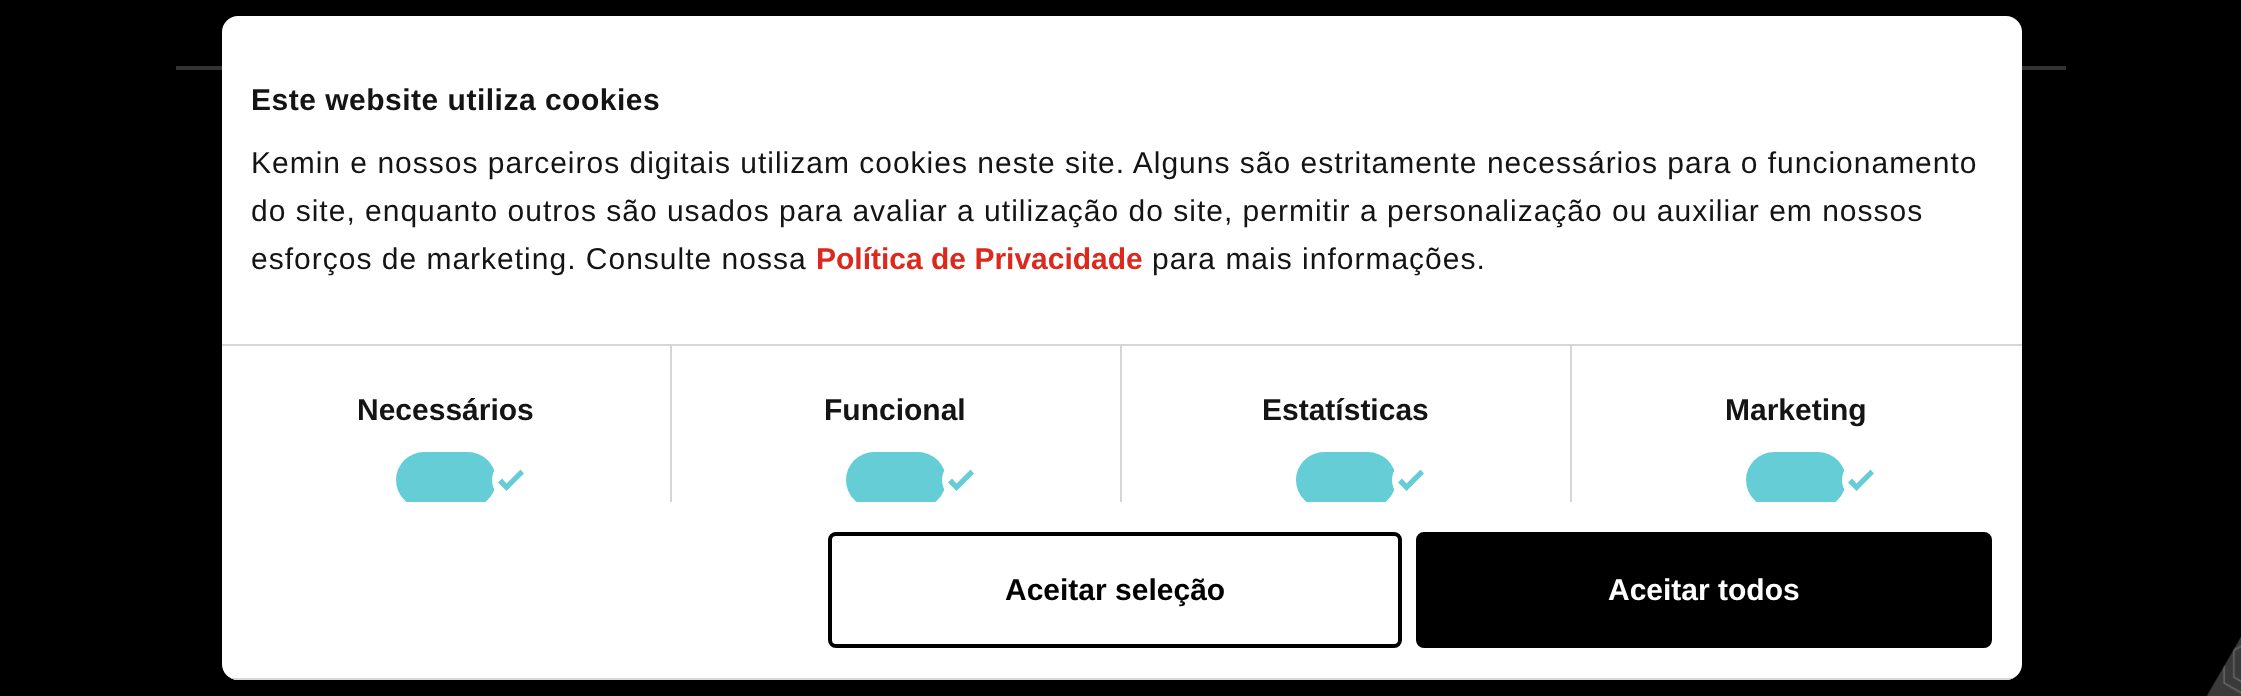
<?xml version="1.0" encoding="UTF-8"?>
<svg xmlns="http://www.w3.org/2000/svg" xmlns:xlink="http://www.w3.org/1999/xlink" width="2241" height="696">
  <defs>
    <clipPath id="clip1"><rect x="222" y="16" width="1800" height="486" /></clipPath>
    <clipPath id="clip2"><rect x="222" y="16" width="1800" height="664" rx="16" /></clipPath>
  </defs>
  <rect width="100%" height="100%" fill="#000000" />
  <rect x="176" y="66" width="1890" height="4" fill="#333333" />
  <image x="2206" y="637" width="35" height="59" xlink:href="image1.png" />
  <rect x="222" y="16" width="1800" height="664" rx="16" fill="#ffffff" />
  <rect x="222" y="344" width="1800" height="2" fill="#d6d6d6" />
  <rect x="670" y="346" width="2" height="156" fill="#d6d6d6" />
  <g clip-path="url(#clip1)">
    <rect x="396" y="452" width="100" height="56" rx="28" fill="#65cdd5" />
  </g>
  <circle cx="512" cy="480" r="20" fill="#ffffff" />
  <path d="M 506.5 491 l -8.5 -8.5 l 4 -4 l 4.5 5 l 14 -14 l 3.5 4 z" fill="#65cdd5" />
  <rect x="1120" y="346" width="2" height="156" fill="#d6d6d6" />
  <g clip-path="url(#clip1)">
    <rect x="846" y="452" width="100" height="56" rx="28" fill="#65cdd5" />
  </g>
  <circle cx="962" cy="480" r="20" fill="#ffffff" />
  <path d="M 956.5 491 l -8.5 -8.5 l 4 -4 l 4.5 5 l 14 -14 l 3.5 4 z" fill="#65cdd5" />
  <rect x="1570" y="346" width="2" height="156" fill="#d6d6d6" />
  <g clip-path="url(#clip1)">
    <rect x="1296" y="452" width="100" height="56" rx="28" fill="#65cdd5" />
  </g>
  <circle cx="1412" cy="480" r="20" fill="#ffffff" />
  <path d="M 1406.5 491 l -8.5 -8.5 l 4 -4 l 4.5 5 l 14 -14 l 3.5 4 z" fill="#65cdd5" />
  <g clip-path="url(#clip1)">
    <rect x="1746" y="452" width="100" height="56" rx="28" fill="#65cdd5" />
  </g>
  <circle cx="1862" cy="480" r="20" fill="#ffffff" />
  <path d="M 1856.5 491 l -8.5 -8.5 l 4 -4 l 4.5 5 l 14 -14 l 3.5 4 z" fill="#65cdd5" />
  <g clip-path="url(#clip2)">
    <rect x="222" y="678" width="1800" height="2" fill="#d6d6d6" />
  </g>
  <rect x="830" y="534" width="570" height="112" rx="6" fill="none" stroke="#000000" stroke-width="4" />
  <rect x="1418" y="534" width="572" height="112" rx="6" fill="#000000" stroke="#000000" stroke-width="4" />
  <text x="251" y="110" style="font-family: Liberation Sans; font-size: 30px; font-weight: bold; letter-spacing: 0.5px; fill: #141414">Este website utiliza cookies</text>
  <text x="251" y="173" style="font-family: Liberation Sans; font-size: 30px; letter-spacing: 1px; fill: #141414">Kemin e nossos parceiros digitais utilizam cookies neste site. Alguns são estritamente necessários para o funcionamento</text>
  <text x="251" y="221" style="font-family: Liberation Sans; font-size: 30px; letter-spacing: 1px; fill: #141414">do site, enquanto outros são usados para avaliar a utilização do site, permitir a personalização ou auxiliar em nossos</text>
  <text x="251" y="269" style="font-family: Liberation Sans; font-size: 30px; letter-spacing: 1px; fill: #141414">esforços de marketing. Consulte nossa</text>
  <text x="816" y="269" style="font-family: Liberation Sans; font-size: 30px; font-weight: bold; fill: #dc291e">Política de Privacidade</text>
  <text x="1152" y="269" style="font-family: Liberation Sans; font-size: 30px; letter-spacing: 1px; fill: #141414">para mais informações.</text>
  <text x="357" y="420" style="font-family: Liberation Sans; font-size: 30px; font-weight: bold; fill: #141414">Necessários</text>
  <text x="824" y="420" style="font-family: Liberation Sans; font-size: 30px; font-weight: bold; fill: #141414">Funcional</text>
  <text x="1262" y="420" style="font-family: Liberation Sans; font-size: 30px; font-weight: bold; fill: #141414">Estatísticas</text>
  <text x="1725" y="420" style="font-family: Liberation Sans; font-size: 30px; font-weight: bold; fill: #141414">Marketing</text>
  <text x="1005" y="600" style="font-family: Liberation Sans; font-size: 30px; font-weight: bold; fill: #000000">Aceitar seleção</text>
  <text x="1608" y="600" style="font-family: Liberation Sans; font-size: 30px; font-weight: bold; fill: #ffffff">Aceitar todos</text>
</svg>
